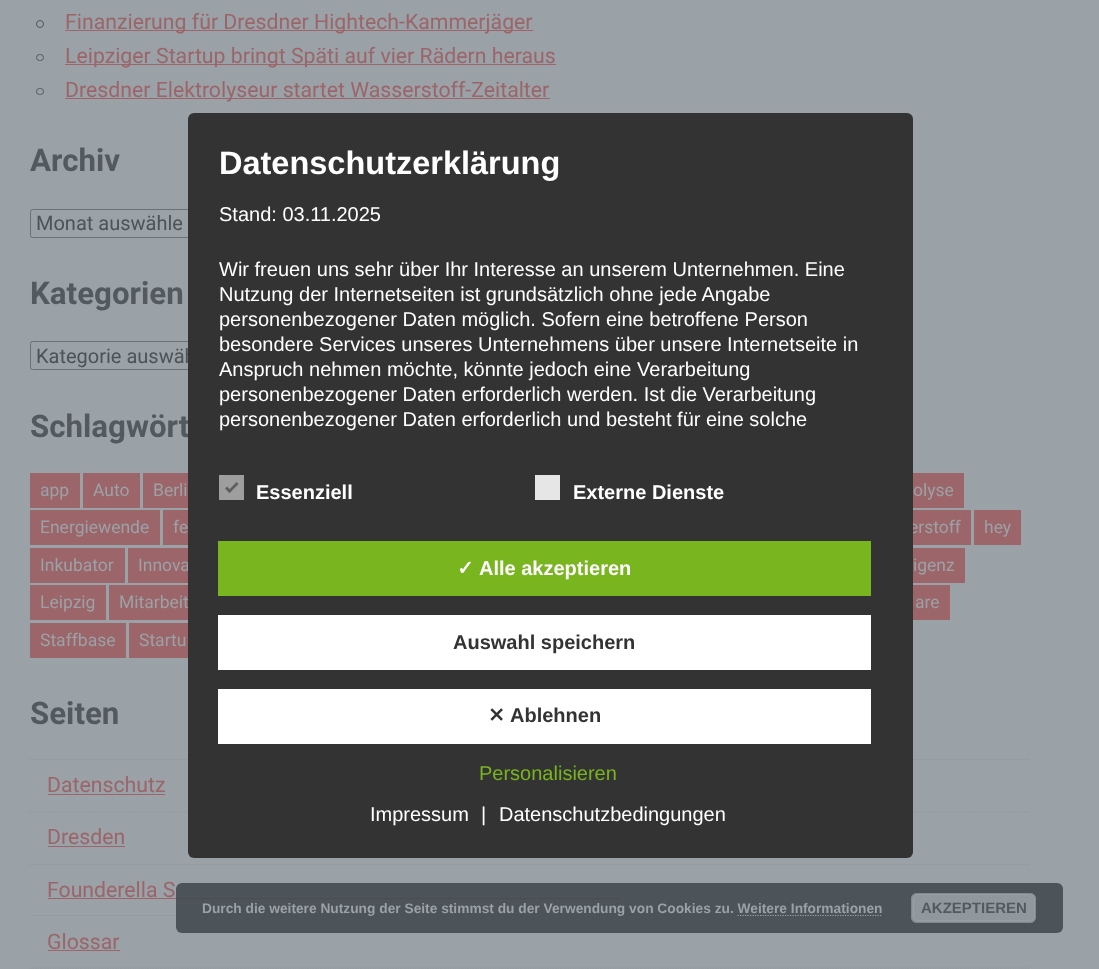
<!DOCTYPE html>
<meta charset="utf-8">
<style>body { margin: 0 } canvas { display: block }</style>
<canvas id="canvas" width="1099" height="969"></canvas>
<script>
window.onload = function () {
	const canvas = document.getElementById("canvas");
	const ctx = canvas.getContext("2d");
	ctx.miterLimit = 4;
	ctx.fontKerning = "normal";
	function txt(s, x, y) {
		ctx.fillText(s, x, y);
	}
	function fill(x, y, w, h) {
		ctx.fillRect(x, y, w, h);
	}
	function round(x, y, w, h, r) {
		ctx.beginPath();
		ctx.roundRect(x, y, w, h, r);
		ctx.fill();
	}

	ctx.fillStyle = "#9BA2A7";
	fill(0, 0, 1099, 969);
	ctx.beginPath();
	ctx.arc(40, 24, 3.5, 0, Math.PI * 2);
	ctx.strokeStyle = "#535A5F";
	ctx.stroke();
	ctx.fillStyle = "#9B6569";
	fill(65, 30, 468, 1);
	ctx.beginPath();
	ctx.roundRect(36.5, 54.5, 7, 6, 3);
	ctx.stroke();
	fill(65, 64, 491, 1);
	ctx.beginPath();
	ctx.roundRect(36.5, 88.5, 7, 6, 3);
	ctx.stroke();
	fill(65, 98, 485, 1);
	ctx.beginPath();
	ctx.roundRect(30.5, 209.5, 185, 28, 2);
	ctx.strokeStyle = "#697175";
	ctx.stroke();
	ctx.beginPath();
	ctx.roundRect(30.5, 341.5, 262, 28, 2);
	ctx.stroke();
	fill(30, 473, 50, 35);
	fill(83, 473, 57, 35);
	fill(143, 473, 45, 35);
	fill(913, 473, 51, 35);
	fill(30, 510, 130, 35);
	fill(163, 510, 25, 35);
	fill(913, 510, 58, 35);
	fill(974, 510, 47, 35);
	fill(30, 548, 95, 35);
	fill(128, 548, 60, 35);
	fill(913, 548, 52, 35);
	fill(30, 585, 76, 35);
	fill(109, 585, 79, 35);
	fill(913, 585, 37, 35);
	fill(30, 623, 96, 35);
	fill(129, 623, 59, 35);
	ctx.beginPath();
	ctx.moveTo(30, 759.5);
	ctx.lineTo(1030, 759.5);
	ctx.strokeStyle = "#8E969A";
	ctx.lineWidth = 1.2;
	ctx.setLineDash([1.25, 1.25]);
	ctx.stroke();
	ctx.beginPath();
	ctx.moveTo(30, 812);
	ctx.lineTo(1030, 812);
	ctx.stroke();
	fill(48, 794, 117, 1);
	ctx.beginPath();
	ctx.moveTo(30, 864.5);
	ctx.lineTo(1030, 864.5);
	ctx.stroke();
	fill(48, 846, 77, 1);
	ctx.beginPath();
	ctx.moveTo(30, 915.5);
	ctx.lineTo(1030, 915.5);
	ctx.stroke();
	fill(48, 898, 571, 1);
	ctx.beginPath();
	ctx.moveTo(30, 968);
	ctx.lineTo(1030, 968);
	ctx.stroke();
	fill(48, 950, 72, 1);
	ctx.fillStyle = "rgba(63, 70, 75, 0.85)";
	round(176, 883, 887, 50, 6);
	ctx.fillStyle = "#90989D";
	round(911, 893, 125, 30, 6);
	ctx.beginPath();
	ctx.roundRect(913.5, 894.5, 121, 26, 4.5);
	ctx.strokeStyle = "#979FA3";
	ctx.lineWidth = 1;
	ctx.setLineDash([]);
	ctx.stroke();
	ctx.beginPath();
	ctx.roundRect(911.5, 893.5, 124, 29, 5.5);
	ctx.strokeStyle = "#828A8E";
	ctx.stroke();
	ctx.beginPath();
	ctx.moveTo(737.5, 915.5);
	ctx.lineTo(882.5, 915.5);
	ctx.strokeStyle = "#9BA2A7";
	ctx.lineWidth = 1.2;
	ctx.setLineDash([1.25, 1.25]);
	ctx.stroke();
	ctx.font = "21.25px Roboto";
	ctx.fillStyle = "#9B6569";
	txt("Finanzierung für Dresdner Hightech-Kammerjäger", 65, 29);
	txt("Leipziger Startup bringt Späti auf vier Rädern heraus", 65, 63);
	txt("Dresdner Elektrolyseur startet Wasserstoff-Zeitalter", 65, 97);
	ctx.font = "bold 31.25px Roboto";
	ctx.fillStyle = "#535A5F";
	txt("Archiv", 30, 171);
	ctx.font = "20px Roboto";
	ctx.fillStyle = "#4B5357";
	txt("Monat auswähle", 36, 230);
	ctx.font = "bold 31.25px Roboto";
	ctx.fillStyle = "#535A5F";
	txt("Kategorien", 30, 304);
	ctx.font = "20px Roboto";
	ctx.fillStyle = "#4B5357";
	txt("Kategorie auswäh", 36, 363);
	ctx.font = "bold 31.25px Roboto";
	ctx.fillStyle = "#535A5F";
	txt("Schlagwört", 30, 437);
	ctx.font = "17.5px Roboto";
	ctx.fillStyle = "#9BA2A7";
	txt("app", 40, 496);
	txt("Auto", 93, 496);
	txt("Berli", 153, 496);
	txt("olyse", 913, 496);
	txt("Energiewende", 40, 533);
	txt("fe", 173, 533);
	txt("erstoff", 909, 533);
	txt("hey", 984, 533);
	txt("Inkubator", 40, 571);
	txt("Innova", 138, 571);
	txt("igenz", 913, 571);
	txt("Leipzig", 40, 608);
	txt("Mitarbeit", 119, 608);
	txt("are", 915, 608);
	txt("Staffbase", 40, 646);
	txt("Startu", 139, 646);
	ctx.font = "bold 31.25px Roboto";
	ctx.fillStyle = "#535A5F";
	txt("Seiten", 30, 724);
	ctx.font = "21.25px Roboto";
	ctx.fillStyle = "#9B6569";
	txt("Datenschutz", 47, 792);
	txt("Dresden", 47, 844);
	txt("Founderella S", 47, 897);
	txt("Glossar", 47, 949);
	ctx.fillStyle = "#333333";
	round(188, 113, 725, 745, 6);
	ctx.font = "bold 32.5px Liberation Sans";
	ctx.fillStyle = "#FFFFFF";
	txt("Datenschutzerklärung", 219, 174);
	ctx.font = "20px Liberation Sans";
	txt("Stand: 03.11.2025", 219, 221);
	txt("Wir freuen uns sehr über Ihr Interesse an unserem Unternehmen. Eine", 219, 276);
	txt("Nutzung der Internetseiten ist grundsätzlich ohne jede Angabe", 219, 301);
	txt("personenbezogener Daten möglich. Sofern eine betroffene Person", 219, 326);
	txt("besondere Services unseres Unternehmens über unsere Internetseite in", 219, 351);
	txt("Anspruch nehmen möchte, könnte jedoch eine Verarbeitung", 219, 376);
	txt("personenbezogener Daten erforderlich werden. Ist die Verarbeitung", 219, 401);
	txt("personenbezogener Daten erforderlich und besteht für eine solche", 219, 426);
	ctx.fillStyle = "#9E9E9E";
	fill(219, 475, 25, 25);
	ctx.fillStyle = "#5E5E5E";
	ctx.beginPath();
	ctx.moveTo(236.5, 482);
	ctx.lineTo(238.5, 484);
	ctx.lineTo(229.5, 493);
	ctx.lineTo(228, 491);
	ctx.closePath();
	ctx.fill();
	ctx.beginPath();
	ctx.moveTo(227, 486.5);
	ctx.lineTo(231.5, 491);
	ctx.lineTo(229.5, 493);
	ctx.lineTo(225, 488.5);
	ctx.closePath();
	ctx.fill();
	ctx.font = "bold 20px Liberation Sans";
	ctx.fillStyle = "#FFFFFF";
	txt("Essenziell", 256, 499);
	ctx.fillStyle = "#E6E6E6";
	fill(535, 475, 25, 25);
	ctx.fillStyle = "#FFFFFF";
	txt("Externe Dienste", 573, 499);
	ctx.fillStyle = "#79B51F";
	fill(218, 541, 653, 55);
	ctx.font = "bold 20px DejaVu Sans";
	ctx.fillStyle = "#FFFFFF";
	txt("✓", 457, 575);
	ctx.font = "bold 20px Liberation Sans";
	txt("Alle akzeptieren", 479, 575);
	fill(218, 615, 653, 55);
	ctx.fillStyle = "#333333";
	txt("Auswahl speichern", 453, 649);
	ctx.fillStyle = "#FFFFFF";
	fill(218, 689, 653, 55);
	ctx.font = "bold 20px DejaVu Sans";
	ctx.fillStyle = "#333333";
	txt("✕", 488, 722);
	ctx.font = "bold 20px Liberation Sans";
	txt("Ablehnen", 510, 722);
	ctx.font = "20px Liberation Sans";
	ctx.fillStyle = "#79B51F";
	txt("Personalisieren", 479, 780);
	ctx.fillStyle = "#FFFFFF";
	txt("Impressum", 370, 821);
	txt("|", 481, 821);
	txt("Datenschutzbedingungen", 499, 821);
	ctx.font = "bold 13.75px Liberation Sans";
	ctx.fillStyle = "#9BA2A7";
	txt("Durch die weitere Nutzung der Seite stimmst du der Verwendung von Cookies zu. Weitere Informationen", 202, 913);
	ctx.font = "bold 15px Liberation Sans";
	ctx.fillStyle = "#535A5F";
	txt("AKZEPTIEREN", 921, 913);
};
</script>
